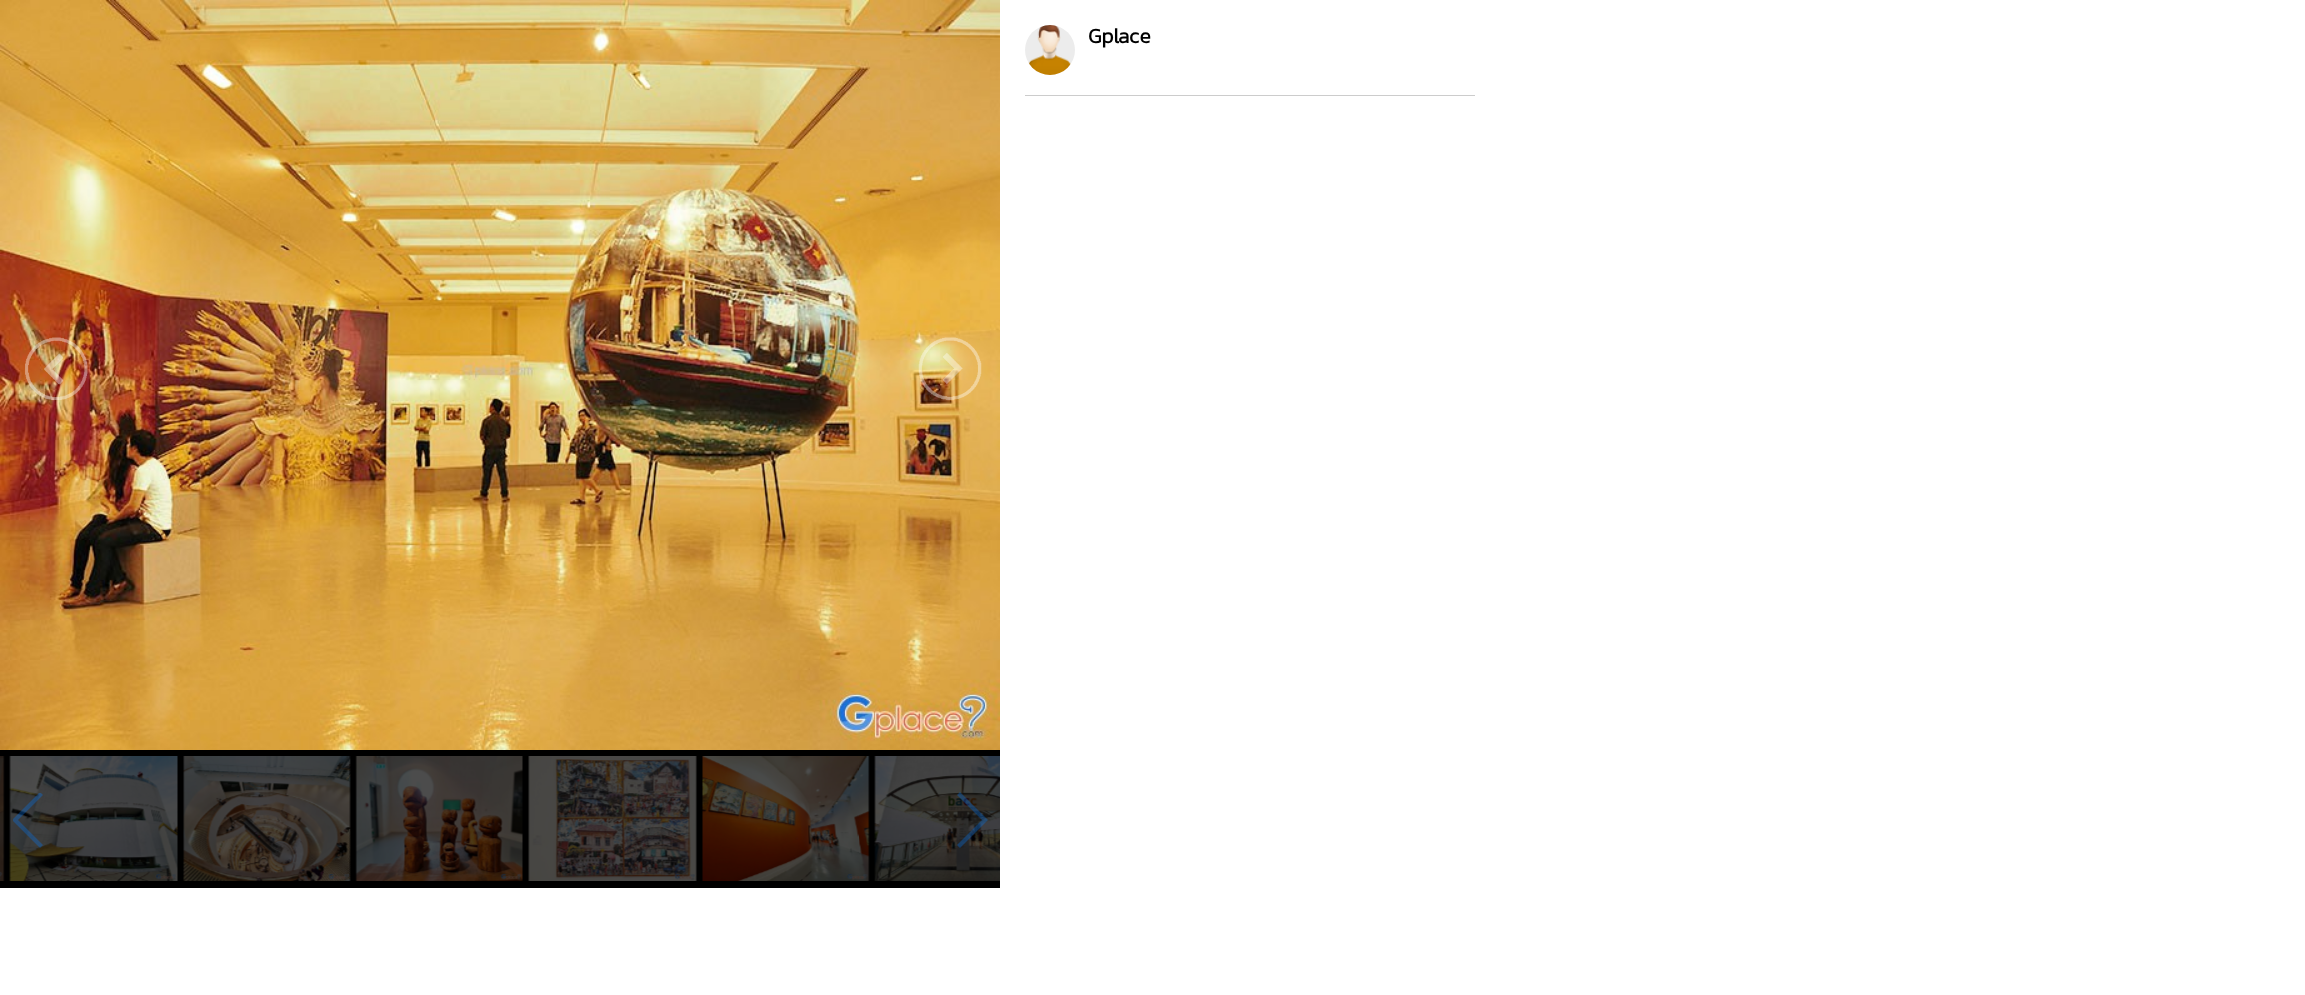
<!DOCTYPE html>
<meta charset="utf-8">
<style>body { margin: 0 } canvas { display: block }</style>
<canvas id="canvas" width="2305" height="995"></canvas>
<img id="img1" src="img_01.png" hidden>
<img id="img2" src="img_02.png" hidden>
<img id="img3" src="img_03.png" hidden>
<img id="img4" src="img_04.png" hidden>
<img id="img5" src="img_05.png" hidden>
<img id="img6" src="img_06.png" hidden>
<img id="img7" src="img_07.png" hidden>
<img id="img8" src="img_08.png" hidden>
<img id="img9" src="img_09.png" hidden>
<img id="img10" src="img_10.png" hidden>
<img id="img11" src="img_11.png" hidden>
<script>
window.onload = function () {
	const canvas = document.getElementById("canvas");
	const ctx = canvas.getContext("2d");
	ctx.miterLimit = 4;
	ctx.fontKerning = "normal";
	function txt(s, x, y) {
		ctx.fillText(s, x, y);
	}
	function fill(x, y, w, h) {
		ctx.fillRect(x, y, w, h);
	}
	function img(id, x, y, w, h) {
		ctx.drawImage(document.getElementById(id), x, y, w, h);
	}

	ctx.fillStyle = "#FFFFFF";
	fill(0, 0, 2305, 995);
	ctx.fillStyle = "#000000";
	fill(0, 750, 1000, 138);
	img("img1", 0, 0, 1000, 750);
	img("img2", 25, 337, 63, 63);
	img("img3", 918, 337, 64, 63);
	img("img4", 0, 756, 5, 125);
	img("img5", 9, 756, 169, 125);
	img("img6", 183, 756, 168, 125);
	img("img7", 355, 756, 168, 125);
	img("img8", 528, 756, 169, 125);
	img("img9", 702, 756, 168, 125);
	img("img10", 874, 756, 126, 125);
	ctx.save();
	ctx.beginPath();
	ctx.rect(13, 793, 33, 55);
	ctx.clip();
	ctx.fillStyle = "rgba(0, 122, 255, 0.3)";
	ctx.beginPath();
	ctx.moveTo(12, 820);
	ctx.lineTo(40, 792);
	ctx.lineTo(43, 795);
	ctx.lineTo(18, 820);
	ctx.lineTo(43, 845);
	ctx.lineTo(40, 848);
	ctx.closePath();
	ctx.fill();
	ctx.restore();
	ctx.fillStyle = "rgba(0, 122, 255, 0.3)";
	ctx.beginPath();
	ctx.moveTo(988, 820);
	ctx.lineTo(960, 848);
	ctx.lineTo(957, 845);
	ctx.lineTo(982, 820);
	ctx.lineTo(957, 795);
	ctx.lineTo(960, 792);
	ctx.closePath();
	ctx.fill();
	img("img11", 1025, 25, 50, 50);
	ctx.fillStyle = "#CCCCCC";
	fill(1025, 95, 450, 1);
	ctx.font = "bold 21px Kanit";
	ctx.fillStyle = "#000000";
	txt("Gplace", 1088, 43);
};
</script>
